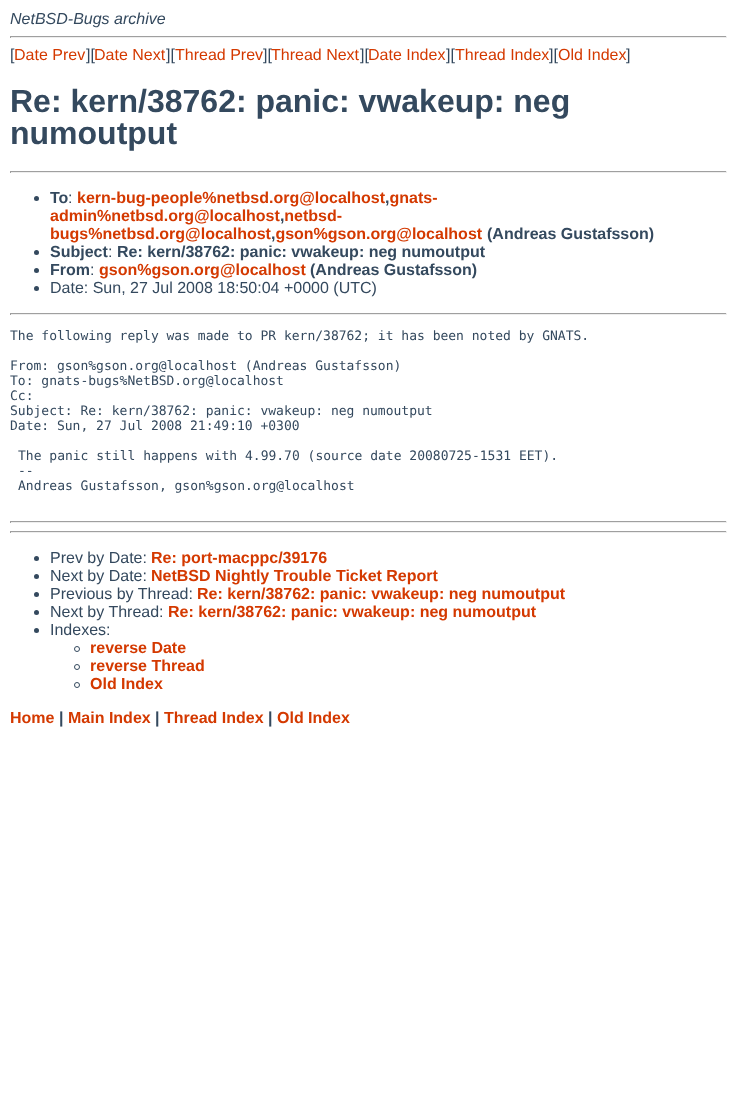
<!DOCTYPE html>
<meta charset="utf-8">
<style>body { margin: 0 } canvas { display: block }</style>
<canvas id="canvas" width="737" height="1103"></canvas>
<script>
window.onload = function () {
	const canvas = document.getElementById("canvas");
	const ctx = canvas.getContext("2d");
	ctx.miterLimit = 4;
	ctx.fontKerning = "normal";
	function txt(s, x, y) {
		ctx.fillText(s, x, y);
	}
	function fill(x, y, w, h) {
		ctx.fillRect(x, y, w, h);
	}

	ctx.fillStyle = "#FFFFFF";
	fill(0, 0, 737, 1103);
	ctx.fillStyle = "#9F9F9F";
	fill(10, 36, 717, 1);
	ctx.fillStyle = "#EEEEEE";
	fill(726, 36, 1, 2);
	fill(10, 37, 717, 1);
	ctx.fillStyle = "#9F9F9F";
	fill(10, 36, 1, 2);
	fill(10, 171, 717, 1);
	ctx.fillStyle = "#EEEEEE";
	fill(726, 171, 1, 2);
	fill(10, 172, 717, 1);
	ctx.fillStyle = "#9F9F9F";
	fill(10, 171, 1, 2);
	ctx.fillStyle = "#34495E";
	ctx.beginPath();
	ctx.arc(36.5, 198.5, 2.5, 0, Math.PI * 2);
	ctx.fill();
	ctx.beginPath();
	ctx.arc(36.5, 252.5, 2.5, 0, Math.PI * 2);
	ctx.fill();
	ctx.beginPath();
	ctx.arc(36.5, 270.5, 2.5, 0, Math.PI * 2);
	ctx.fill();
	ctx.beginPath();
	ctx.arc(36.5, 288.5, 2.5, 0, Math.PI * 2);
	ctx.fill();
	ctx.fillStyle = "#9F9F9F";
	fill(10, 313, 717, 1);
	ctx.fillStyle = "#EEEEEE";
	fill(726, 313, 1, 2);
	fill(10, 314, 717, 1);
	ctx.fillStyle = "#9F9F9F";
	fill(10, 313, 1, 2);
	fill(10, 521, 717, 1);
	ctx.fillStyle = "#EEEEEE";
	fill(726, 521, 1, 2);
	fill(10, 522, 717, 1);
	ctx.fillStyle = "#9F9F9F";
	fill(10, 521, 1, 2);
	fill(10, 531, 717, 1);
	ctx.fillStyle = "#EEEEEE";
	fill(726, 531, 1, 2);
	fill(10, 532, 717, 1);
	ctx.fillStyle = "#9F9F9F";
	fill(10, 531, 1, 2);
	ctx.fillStyle = "#34495E";
	ctx.beginPath();
	ctx.arc(36.5, 558.5, 2.5, 0, Math.PI * 2);
	ctx.fill();
	ctx.beginPath();
	ctx.arc(36.5, 576.5, 2.5, 0, Math.PI * 2);
	ctx.fill();
	ctx.beginPath();
	ctx.arc(36.5, 594.5, 2.5, 0, Math.PI * 2);
	ctx.fill();
	ctx.beginPath();
	ctx.arc(36.5, 612.5, 2.5, 0, Math.PI * 2);
	ctx.fill();
	ctx.beginPath();
	ctx.arc(36.5, 630.5, 2.5, 0, Math.PI * 2);
	ctx.fill();
	ctx.beginPath();
	ctx.arc(77, 649, 2.5, 0, Math.PI * 2);
	ctx.strokeStyle = "#34495E";
	ctx.stroke();
	ctx.beginPath();
	ctx.arc(77, 667, 2.5, 0, Math.PI * 2);
	ctx.stroke();
	ctx.beginPath();
	ctx.arc(77, 685, 2.5, 0, Math.PI * 2);
	ctx.stroke();
	ctx.font = "italic 16px Liberation Sans";
	txt("NetBSD-Bugs archive", 10, 24);
	ctx.font = "16px Liberation Sans";
	txt("[", 10, 60);
	ctx.fillStyle = "#D43900";
	txt("Date Prev", 14, 60);
	ctx.fillStyle = "#34495E";
	txt("][", 86, 60);
	ctx.fillStyle = "#D43900";
	txt("Date Next", 94, 60);
	ctx.fillStyle = "#34495E";
	txt("][", 166, 60);
	ctx.fillStyle = "#D43900";
	txt("Thread Prev", 175, 60);
	ctx.fillStyle = "#34495E";
	txt("][", 263, 60);
	ctx.fillStyle = "#D43900";
	txt("Thread Next", 271, 60);
	ctx.fillStyle = "#34495E";
	txt("][", 360, 60);
	ctx.fillStyle = "#D43900";
	txt("Date Index", 368, 60);
	ctx.fillStyle = "#34495E";
	txt("][", 446, 60);
	ctx.fillStyle = "#D43900";
	txt("Thread Index", 455, 60);
	ctx.fillStyle = "#34495E";
	txt("][", 549, 60);
	ctx.fillStyle = "#D43900";
	txt("Old Index", 558, 60);
	ctx.fillStyle = "#34495E";
	txt("]", 626, 60);
	ctx.font = "bold 32px Liberation Sans";
	txt("Re: kern/38762: panic: vwakeup: neg", 10, 112);
	txt("numoutput", 10, 144);
	ctx.font = "bold 16px Liberation Sans";
	txt("To", 50, 203);
	ctx.font = "16px Liberation Sans";
	txt(":", 68, 203);
	ctx.font = "bold 16px Liberation Sans";
	ctx.fillStyle = "#D43900";
	txt("kern-bug-people%netbsd.org@localhost gnats-", 77, 203);
	ctx.fillStyle = "#34495E";
	txt(",", 385, 203);
	ctx.fillStyle = "#D43900";
	txt("admin%netbsd.org@localhost netbsd-", 50, 221);
	ctx.fillStyle = "#34495E";
	txt(",", 280, 221);
	ctx.fillStyle = "#D43900";
	txt("bugs%netbsd.org@localhost gson%gson.org@localhost", 50, 239);
	ctx.fillStyle = "#34495E";
	txt("(Andreas Gustafsson)", 487, 239);
	txt(",", 271, 239);
	txt("Subject", 50, 257);
	ctx.font = "16px Liberation Sans";
	txt(":", 108, 257);
	ctx.font = "bold 16px Liberation Sans";
	txt("Re: kern/38762: panic: vwakeup: neg numoutput", 117, 257);
	txt("From", 50, 275);
	ctx.font = "16px Liberation Sans";
	txt(":", 90, 275);
	ctx.font = "bold 16px Liberation Sans";
	ctx.fillStyle = "#D43900";
	txt("gson%gson.org@localhost", 99, 275);
	ctx.fillStyle = "#34495E";
	txt("(Andreas Gustafsson)", 310, 275);
	ctx.font = "16px Liberation Sans";
	txt("Date: Sun, 27 Jul 2008 18:50:04 +0000 (UTC)", 50, 293);
	ctx.font = "13px DejaVu Sans Mono";
	txt("The following reply was made to PR kern/38762; it has been noted by GNATS.", 10, 340);
	txt("From: gson%gson.org@localhost (Andreas Gustafsson)", 10, 370);
	txt("To: gnats-bugs%NetBSD.org@localhost", 10, 385);
	txt("Cc:", 10, 400);
	txt("Subject: Re: kern/38762: panic: vwakeup: neg numoutput", 10, 415);
	txt("Date: Sun, 27 Jul 2008 21:49:10 +0300", 10, 430);
	txt("The panic still happens with 4.99.70 (source date 20080725-1531 EET).", 18, 460);
	txt("--", 18, 475);
	txt("Andreas Gustafsson, gson%gson.org@localhost", 18, 490);
	ctx.font = "16px Liberation Sans";
	txt("Prev by Date:", 50, 563);
	ctx.font = "bold 16px Liberation Sans";
	ctx.fillStyle = "#D43900";
	txt("Re: port-macppc/39176", 151, 563);
	ctx.font = "16px Liberation Sans";
	ctx.fillStyle = "#34495E";
	txt("Next by Date:", 50, 581);
	ctx.font = "bold 16px Liberation Sans";
	ctx.fillStyle = "#D43900";
	txt("NetBSD Nightly Trouble Ticket Report", 151, 581);
	ctx.font = "16px Liberation Sans";
	ctx.fillStyle = "#34495E";
	txt("Previous by Thread:", 50, 599);
	ctx.font = "bold 16px Liberation Sans";
	ctx.fillStyle = "#D43900";
	txt("Re: kern/38762: panic: vwakeup: neg numoutput", 197, 599);
	ctx.font = "16px Liberation Sans";
	ctx.fillStyle = "#34495E";
	txt("Next by Thread:", 50, 617);
	ctx.font = "bold 16px Liberation Sans";
	ctx.fillStyle = "#D43900";
	txt("Re: kern/38762: panic: vwakeup: neg numoutput", 168, 617);
	ctx.font = "16px Liberation Sans";
	ctx.fillStyle = "#34495E";
	txt("Indexes:", 50, 635);
	ctx.font = "bold 16px Liberation Sans";
	ctx.fillStyle = "#D43900";
	txt("reverse Date", 90, 653);
	txt("reverse Thread", 90, 671);
	txt("Old Index", 90, 689);
	txt("Home", 10, 723);
	ctx.fillStyle = "#34495E";
	txt("|", 59, 723);
	ctx.fillStyle = "#D43900";
	txt("Main Index", 68, 723);
	ctx.fillStyle = "#34495E";
	txt("|", 155, 723);
	ctx.fillStyle = "#D43900";
	txt("Thread Index", 164, 723);
	ctx.fillStyle = "#34495E";
	txt("|", 268, 723);
	ctx.fillStyle = "#D43900";
	txt("Old Index", 277, 723);
};
</script>
